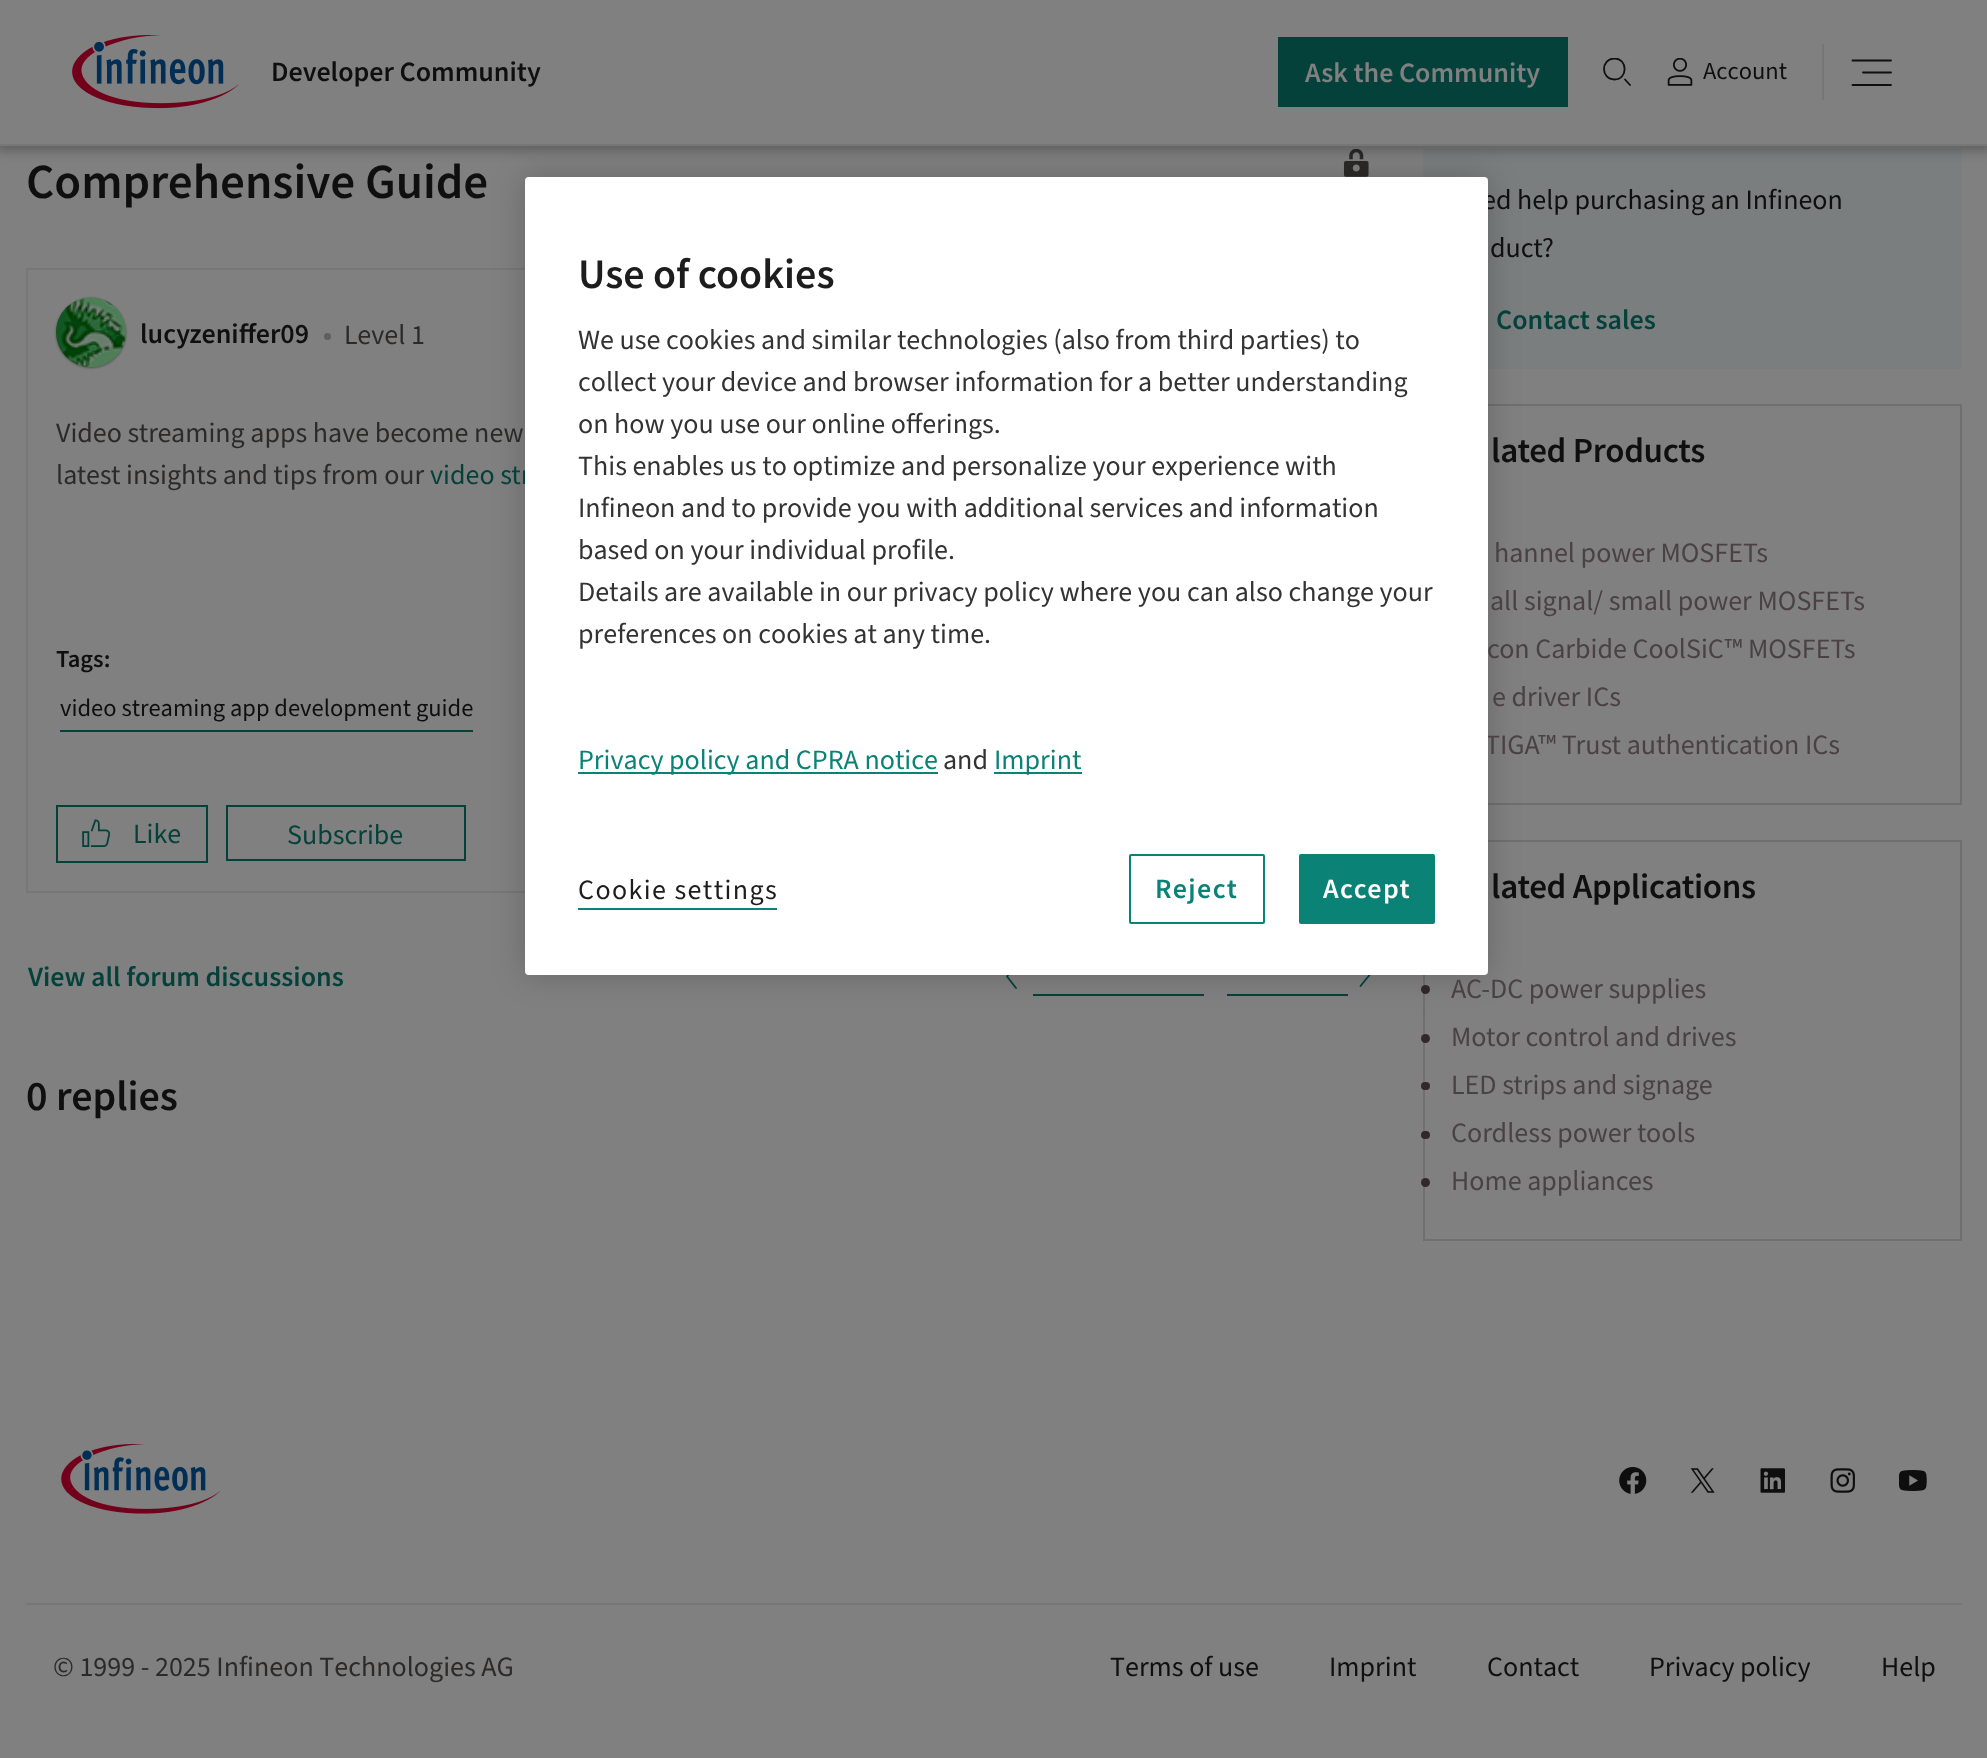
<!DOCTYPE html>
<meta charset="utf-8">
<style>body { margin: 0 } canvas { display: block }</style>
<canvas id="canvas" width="1987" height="1758"></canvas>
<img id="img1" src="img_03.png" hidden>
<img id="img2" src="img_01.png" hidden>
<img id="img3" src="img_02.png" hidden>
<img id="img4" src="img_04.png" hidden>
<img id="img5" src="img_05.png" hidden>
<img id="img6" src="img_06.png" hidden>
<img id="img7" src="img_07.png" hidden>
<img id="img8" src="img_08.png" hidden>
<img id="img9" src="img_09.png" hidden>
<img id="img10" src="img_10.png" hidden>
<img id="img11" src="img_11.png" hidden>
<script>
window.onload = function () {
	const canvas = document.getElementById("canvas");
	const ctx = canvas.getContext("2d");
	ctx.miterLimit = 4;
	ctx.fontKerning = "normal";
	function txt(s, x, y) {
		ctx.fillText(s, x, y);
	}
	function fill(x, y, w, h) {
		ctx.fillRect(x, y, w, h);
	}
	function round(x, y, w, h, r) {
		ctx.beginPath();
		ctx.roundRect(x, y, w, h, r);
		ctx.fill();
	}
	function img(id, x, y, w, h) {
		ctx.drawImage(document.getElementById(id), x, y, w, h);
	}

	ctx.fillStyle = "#808080";
	fill(0, 0, 1987, 1758);
	img("img1", 1343, 149, 26, 28);
	ctx.fillStyle = "#7B7E7E";
	fill(1423, 149, 539, 220);
	ctx.fillStyle = "rgba(0, 0, 0, 0.25)";
	ctx.filter = "blur(6px)";
	ctx.beginPath();
	ctx.rect(-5, -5, 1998, 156);
	ctx.fill();
	ctx.filter = "none";
	ctx.fillStyle = "#808080";
	fill(0, 0, 1987, 144);
	ctx.fillStyle = "#777777";
	fill(0, 144, 1987, 2);
	img("img2", 72, 35, 167, 74);
	ctx.fillStyle = "#05413B";
	fill(1278, 37, 290, 70);
	ctx.beginPath();
	ctx.moveTo(1630, 85);
	ctx.lineTo(1625, 79.5);
	ctx.strokeStyle = "#0F0F0F";
	ctx.lineWidth = 1.8;
	ctx.lineCap = "round";
	ctx.lineJoin = "round";
	ctx.stroke();
	ctx.save();
	ctx.beginPath();
	ctx.rect(1603, 58, 28, 28);
	ctx.clip();
	ctx.beginPath();
	ctx.moveTo(1614.5, 79.5);
	ctx.bezierCurveTo(1628, 79.5, 1628, 58.5, 1614.5, 58.5);
	ctx.bezierCurveTo(1600.5, 58.5, 1600.5, 79.5, 1614.5, 79.5);
	ctx.closePath();
	ctx.stroke();
	ctx.restore();
	img("img3", 1667, 58, 26, 28);
	ctx.fillStyle = "#777777";
	fill(1822, 44, 2, 56);
	ctx.beginPath();
	ctx.moveTo(1852.5, 85);
	ctx.lineTo(1891, 85);
	ctx.moveTo(1852.5, 60.5);
	ctx.lineTo(1891, 60.5);
	ctx.moveTo(1863, 72.5);
	ctx.lineTo(1891, 72.5);
	ctx.stroke();
	fill(26, 268, 499, 2);
	fill(26, 268, 2, 509);
	ctx.fillStyle = "#4D4D4D";
	ctx.filter = "blur(1px)";
	ctx.beginPath();
	ctx.roundRect(56, 298, 70, 70, 35);
	ctx.fill();
	ctx.filter = "none";
	img("img4", 56, 297, 70, 70);
	ctx.fillStyle = "#605E5E";
	ctx.beginPath();
	ctx.arc(327.5, 336.5, 3.5, 0, Math.PI * 2);
	ctx.fill();
	ctx.fillStyle = "#05413B";
	fill(60, 730, 413, 2);
	ctx.fillStyle = "#777777";
	fill(26, 891, 499, 2);
	fill(26, 777, 2, 116);
	ctx.strokeStyle = "#05413B";
	ctx.lineWidth = 2;
	ctx.lineJoin = "miter";
	ctx.strokeRect(57, 806, 150, 56);
	img("img5", 82, 819, 28, 28);
	ctx.strokeRect(227, 806, 238, 54);
	ctx.beginPath();
	ctx.moveTo(1016, 965);
	ctx.lineTo(1007, 976.5);
	ctx.lineTo(1016, 988);
	ctx.lineWidth = 1.8;
	ctx.lineJoin = "round";
	ctx.stroke();
	ctx.fillStyle = "#05413B";
	fill(1033, 994, 171, 2);
	ctx.beginPath();
	ctx.moveTo(1360.5, 963.5);
	ctx.lineTo(1369.5, 975);
	ctx.lineTo(1360.5, 986);
	ctx.stroke();
	fill(1227, 994, 121, 2);
	ctx.strokeStyle = "#6F6F6F";
	ctx.lineWidth = 2;
	ctx.lineJoin = "miter";
	ctx.strokeRect(1424, 405, 537, 399);
	ctx.strokeRect(1424, 841, 537, 399);
	ctx.fillStyle = "#32282A";
	ctx.beginPath();
	ctx.arc(1425.5, 989.5, 4.5, 0, Math.PI * 2);
	ctx.fill();
	ctx.beginPath();
	ctx.arc(1425.5, 1038.5, 4.5, 0, Math.PI * 2);
	ctx.fill();
	round(1421, 1082, 9, 8, 4);
	round(1421, 1131, 9, 8, 4);
	ctx.beginPath();
	ctx.arc(1425.5, 1182.5, 4.5, 0, Math.PI * 2);
	ctx.fill();
	ctx.fillStyle = "#777777";
	fill(26, 1603, 1936, 2);
	img("img6", 61, 1444, 160, 70);
	img("img7", 1619, 1467, 28, 27);
	img("img8", 1690, 1468, 25, 25);
	img("img9", 1760, 1468, 25, 25);
	img("img10", 1830, 1468, 25, 25);
	img("img11", 1899, 1470, 28, 21);
	ctx.fillStyle = "rgba(0, 0, 0, 0.2)";
	ctx.filter = "blur(16px)";
	ctx.beginPath();
	ctx.roundRect(525, 177, 963, 798, 4);
	ctx.fill();
	ctx.filter = "none";
	ctx.font = "600 28px Source Sans Pro";
	ctx.fillStyle = "#0F0F0F";
	txt("Developer Community", 271, 81);
	ctx.fillStyle = "#808080";
	txt("Ask the Community", 1305, 82);
	ctx.font = "24.5px 'Source Sans 3'";
	ctx.fillStyle = "#0F0F0F";
	txt("Account", 1703, 79);
	ctx.font = "600 49px Source Sans Pro";
	txt("Comprehensive Guide", 26, 198);
	ctx.font = "600 28px Source Sans Pro";
	txt("lucyzeniffer09", 140, 343);
	ctx.font = "28px Source Sans Pro";
	ctx.fillStyle = "#2C2A29";
	txt("Level 1", 344, 344);
	txt("Video streaming apps have become new", 56, 442);
	txt("latest insights and tips from our", 56, 484);
	ctx.fillStyle = "#05413B";
	txt("video str", 430, 484);
	ctx.font = "600 24.5px Source Sans Pro";
	ctx.fillStyle = "#0F0F0F";
	txt("Tags:", 56, 667);
	ctx.font = "24.5px 'Source Sans 3'";
	txt("video streaming app development guide", 60, 716);
	ctx.font = "28px 'Source Sans 3'";
	ctx.fillStyle = "#05413B";
	txt("Like", 133, 843);
	ctx.font = "28px Source Sans Pro";
	txt("Subscribe", 287, 844);
	ctx.font = "600 28px Source Sans Pro";
	txt("View all forum discussions", 28, 986);
	ctx.font = "600 42px Source Sans Pro";
	ctx.fillStyle = "#0F0F0F";
	txt("0 replies", 26, 1110);
	ctx.font = "28px Source Sans Pro";
	txt("ed help purchasing an Infineon", 1482, 209);
	txt("duct?", 1490, 257);
	ctx.font = "600 28px Source Sans Pro";
	ctx.fillStyle = "#05413B";
	txt("Contact sales", 1496, 329);
	ctx.letterSpacing = "-0.3px";
	ctx.font = "600 35px Source Sans Pro";
	ctx.fillStyle = "#0F0F0F";
	txt("lated Products", 1491, 462);
	ctx.letterSpacing = "0px";
	ctx.font = "28px Source Sans Pro";
	ctx.fillStyle = "#494143";
	txt("hannel power MOSFETs", 1494, 562);
	txt("all signal/ small power MOSFETs", 1490, 610);
	txt("con Carbide CoolSiC™ MOSFETs", 1487, 658);
	txt("e driver ICs", 1492, 706);
	txt("TIGA™ Trust authentication ICs", 1485, 754);
	ctx.letterSpacing = "-0.3px";
	ctx.font = "600 35px Source Sans Pro";
	ctx.fillStyle = "#0F0F0F";
	txt("lated Applications", 1491, 898);
	ctx.letterSpacing = "0px";
	ctx.font = "28px Source Sans Pro";
	ctx.fillStyle = "#494143";
	txt("AC-DC power supplies", 1451, 998);
	txt("Motor control and drives", 1451, 1046);
	txt("LED strips and signage", 1451, 1094);
	txt("Cordless power tools", 1451, 1142);
	txt("Home appliances", 1451, 1190);
	ctx.font = "28px 'Source Sans 3'";
	ctx.fillStyle = "#2C2A29";
	txt("© 1999 - 2025 Infineon Technologies AG", 53, 1676);
	ctx.fillStyle = "#0F0F0F";
	txt("Terms of use", 1110, 1676);
	txt("Imprint", 1329, 1676);
	txt("Contact", 1487, 1676);
	txt("Privacy policy", 1649, 1676);
	txt("Help", 1881, 1676);
	ctx.fillStyle = "#FFFFFF";
	round(525, 177, 963, 798, 4);
	ctx.font = "600 42px Source Sans Pro";
	ctx.fillStyle = "#1D1D1D";
	txt("Use of cookies", 578, 288);
	ctx.font = "28px 'Source Sans 3'";
	ctx.fillStyle = "#333333";
	txt("We use cookies and similar technologies (also from third parties) to", 578, 349);
	txt("collect your device and browser information for a better understanding", 578, 391);
	txt("on how you use our online offerings.", 578, 433);
	txt("This enables us to optimize and personalize your experience with", 578, 475);
	txt("Infineon and to provide you with additional services and information", 578, 517);
	txt("based on your individual profile.", 578, 559);
	txt("Details are available in our privacy policy where you can also change your", 578, 601);
	txt("preferences on cookies at any time.", 578, 643);
	ctx.fillStyle = "#0A8276";
	fill(578, 772, 360, 2);
	txt("Privacy policy and CPRA notice", 578, 769);
	ctx.fillStyle = "#333333";
	txt("and", 943, 769);
	ctx.fillStyle = "#0A8276";
	fill(994, 772, 88, 2);
	txt("Imprint", 994, 769);
	ctx.letterSpacing = "1.4px";
	ctx.fillStyle = "#1D1D1D";
	txt("Cookie settings", 578, 899);
	ctx.fillStyle = "#0A8276";
	fill(578, 908, 199, 2);
	ctx.beginPath();
	ctx.roundRect(1130, 855, 134, 68, 1);
	ctx.strokeStyle = "#0A8276";
	ctx.stroke();
	ctx.font = "600 28px Source Sans Pro";
	txt("Reject", 1155, 898);
	ctx.beginPath();
	ctx.roundRect(1300, 855, 134, 68, 1);
	ctx.fill();
	ctx.stroke();
	ctx.fillStyle = "#FFFFFF";
	txt("Accept", 1323, 898);
};
</script>
